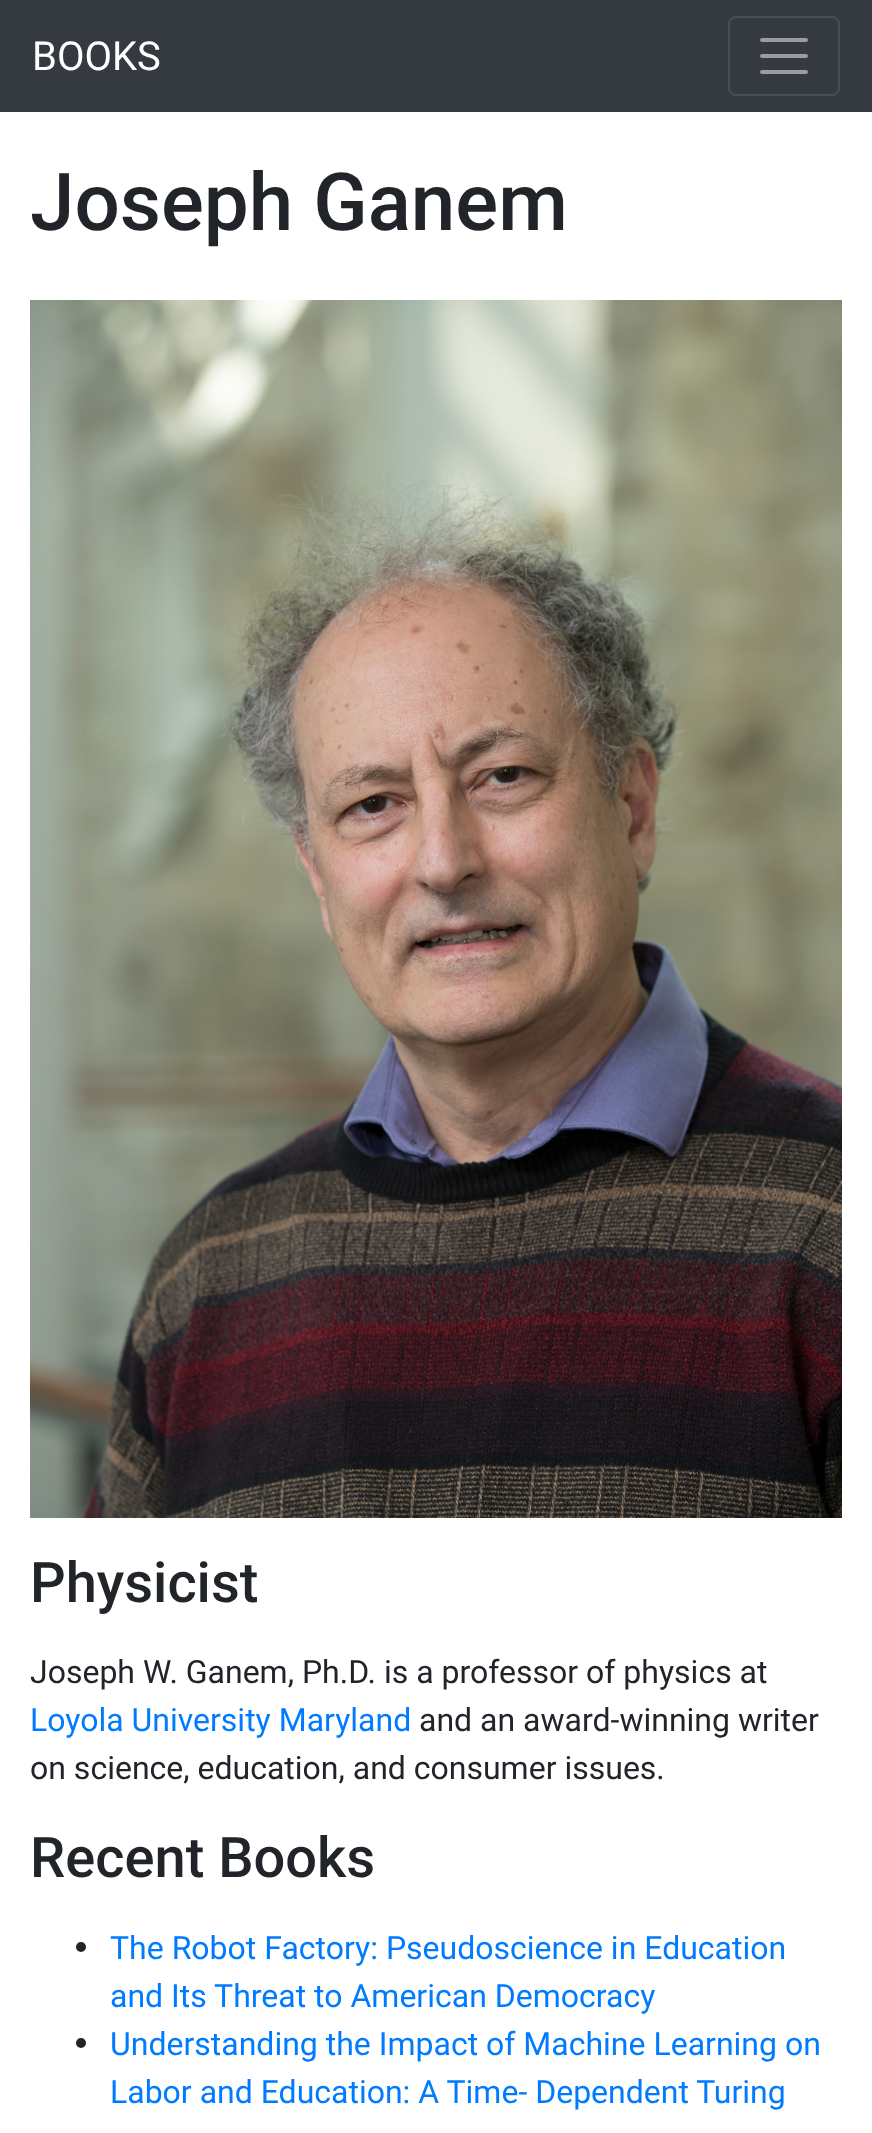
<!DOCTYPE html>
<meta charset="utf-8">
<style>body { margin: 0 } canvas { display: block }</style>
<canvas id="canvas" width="872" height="2133"></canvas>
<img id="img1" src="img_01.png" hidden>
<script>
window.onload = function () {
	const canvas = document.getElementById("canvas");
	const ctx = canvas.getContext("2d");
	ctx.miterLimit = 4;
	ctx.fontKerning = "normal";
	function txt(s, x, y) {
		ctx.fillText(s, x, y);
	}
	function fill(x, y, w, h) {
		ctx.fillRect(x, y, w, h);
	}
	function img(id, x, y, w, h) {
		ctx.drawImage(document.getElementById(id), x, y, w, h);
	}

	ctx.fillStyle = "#FFFFFF";
	fill(0, 0, 872, 2133);
	ctx.fillStyle = "#343A40";
	fill(0, 0, 872, 112);
	ctx.beginPath();
	ctx.roundRect(729, 17, 110, 78, 7);
	ctx.strokeStyle = "#484E53";
	ctx.lineWidth = 2;
	ctx.stroke();
	ctx.beginPath();
	ctx.moveTo(762, 40);
	ctx.lineTo(806, 40);
	ctx.moveTo(762, 56);
	ctx.lineTo(806, 56);
	ctx.moveTo(762, 72);
	ctx.lineTo(806, 72);
	ctx.strokeStyle = "#9A9DA0";
	ctx.lineWidth = 4;
	ctx.lineCap = "round";
	ctx.stroke();
	img("img1", 30, 300, 812, 1218);
	ctx.fillStyle = "#212529";
	ctx.beginPath();
	ctx.arc(81, 1947, 5, 0, Math.PI * 2);
	ctx.fill();
	ctx.beginPath();
	ctx.arc(81, 2043, 5, 0, Math.PI * 2);
	ctx.fill();
	ctx.font = "40px Roboto";
	ctx.fillStyle = "#FFFFFF";
	txt("BOOKS", 32, 70);
	ctx.font = "500 80px Roboto";
	ctx.fillStyle = "#212529";
	txt("Joseph Ganem", 30, 230);
	ctx.font = "500 56px Roboto";
	txt("Physicist", 30, 1602);
	ctx.font = "32px Roboto";
	txt("Joseph W. Ganem, Ph.D. is a professor of physics at", 30, 1683);
	ctx.fillStyle = "#007BFF";
	txt("Loyola University Maryland", 30, 1731);
	ctx.fillStyle = "#212529";
	txt("and an award-winning writer", 419, 1731);
	txt("on science, education, and consumer issues.", 30, 1779);
	ctx.font = "500 56px Roboto";
	txt("Recent Books", 30, 1877);
	ctx.font = "32px Roboto";
	ctx.fillStyle = "#007BFF";
	txt("The Robot Factory: Pseudoscience in Education", 110, 1959);
	txt("and Its Threat to American Democracy", 110, 2007);
	txt("Understanding the Impact of Machine Learning on", 110, 2055);
	txt("Labor and Education: A Time- Dependent Turing", 110, 2103);
};
</script>
